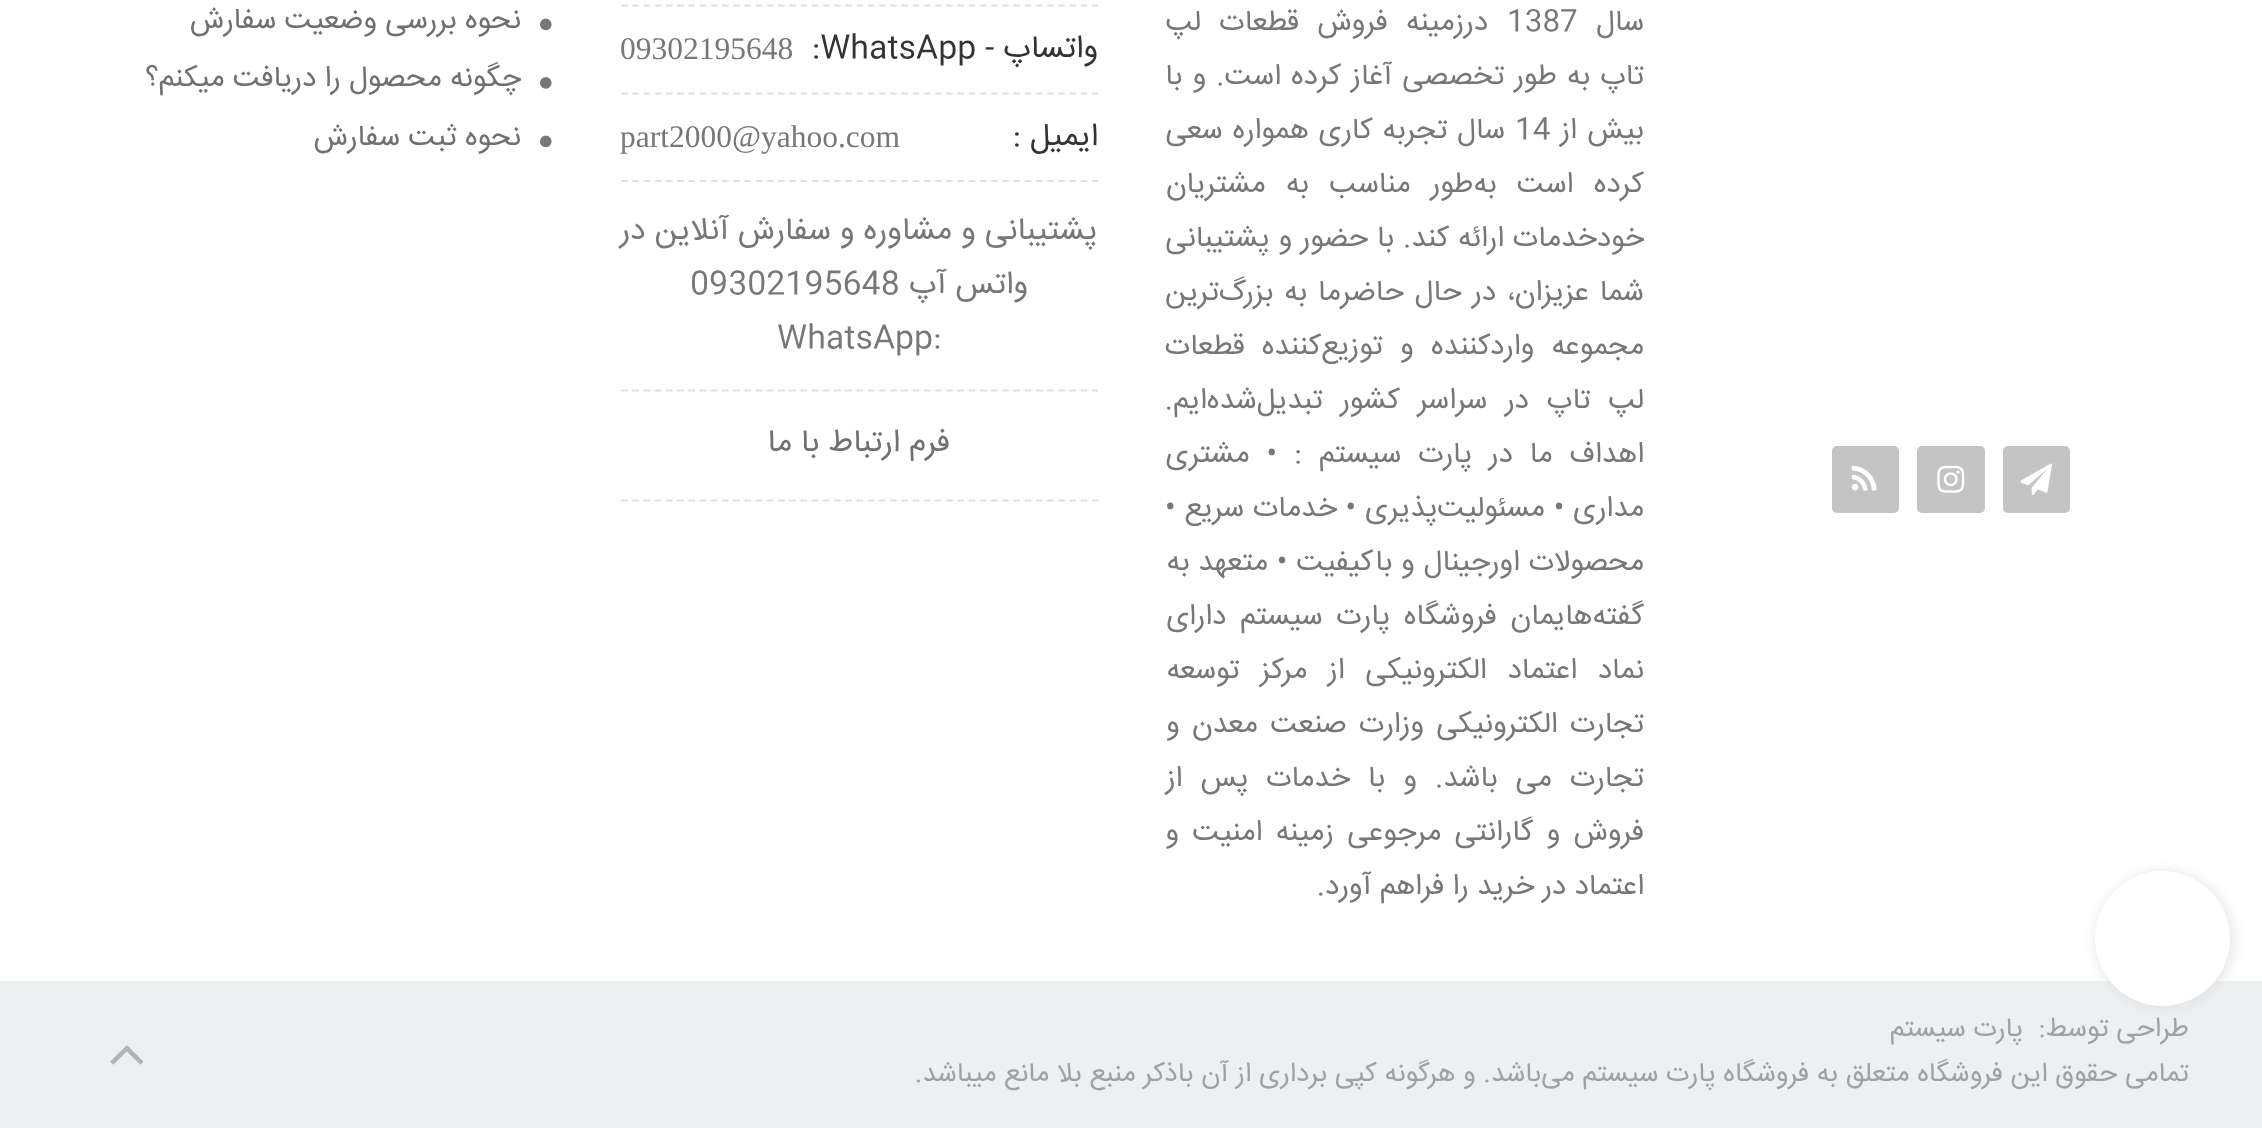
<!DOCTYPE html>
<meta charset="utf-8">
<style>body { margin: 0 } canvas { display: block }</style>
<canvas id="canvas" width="2262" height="1128"></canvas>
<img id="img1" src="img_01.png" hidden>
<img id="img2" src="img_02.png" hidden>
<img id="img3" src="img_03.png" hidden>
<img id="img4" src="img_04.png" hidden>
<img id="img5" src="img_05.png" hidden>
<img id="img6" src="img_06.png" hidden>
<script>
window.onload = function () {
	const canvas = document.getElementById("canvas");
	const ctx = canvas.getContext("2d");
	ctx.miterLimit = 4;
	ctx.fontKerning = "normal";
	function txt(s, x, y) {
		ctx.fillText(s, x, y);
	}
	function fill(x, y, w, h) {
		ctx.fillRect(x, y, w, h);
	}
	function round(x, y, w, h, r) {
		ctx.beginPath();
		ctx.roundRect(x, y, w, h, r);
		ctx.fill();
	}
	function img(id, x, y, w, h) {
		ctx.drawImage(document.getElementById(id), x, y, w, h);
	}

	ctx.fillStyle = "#FFFFFF";
	fill(0, 0, 2262, 1128);
	ctx.beginPath();
	ctx.moveTo(621, 5.5);
	ctx.lineTo(1098, 5.5);
	ctx.strokeStyle = "#E0E0E0";
	ctx.lineWidth = 2.2;
	ctx.setLineDash([6.75, 4.46]);
	ctx.stroke();
	ctx.beginPath();
	ctx.moveTo(621, 93.5);
	ctx.lineTo(1098, 93.5);
	ctx.stroke();
	ctx.beginPath();
	ctx.moveTo(621, 181);
	ctx.lineTo(1098, 181);
	ctx.stroke();
	ctx.beginPath();
	ctx.moveTo(621, 390.5);
	ctx.lineTo(1098, 390.5);
	ctx.stroke();
	ctx.beginPath();
	ctx.moveTo(621, 500.5);
	ctx.lineTo(1098, 500.5);
	ctx.stroke();
	img("img1", 540, 18, 12, 13);
	img("img2", 540, 77, 12, 12);
	img("img1", 540, 135, 12, 13);
	ctx.fillStyle = "#C4C4C4";
	round(2003, 446, 67, 67, 5);
	img("img3", 2020, 463, 32, 32);
	round(1917, 446, 68, 67, 5);
	img("img4", 1937, 465, 28, 28);
	round(1832, 446, 67, 67, 5);
	img("img5", 1851, 465, 26, 26);
	ctx.fillStyle = "#EBF0F3";
	fill(0, 981, 2262, 147);
	ctx.fillStyle = "#E0E0E0";
	ctx.filter = "blur(7px)";
	ctx.beginPath();
	ctx.roundRect(2097, 873, 135, 135, 67.5);
	ctx.fill();
	ctx.filter = "none";
	ctx.fillStyle = "#FFFFFF";
	ctx.beginPath();
	ctx.arc(2162.5, 938.5, 67.5, 0, Math.PI * 2);
	ctx.fill();
	img("img6", 110, 1045, 33, 20);
	ctx.direction = "rtl";
	ctx.font = "29.25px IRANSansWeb";
	ctx.fillStyle = "#777777";
	txt("سال", 1644, 30);
	ctx.direction = "ltr";
	txt("1387", 1507, 30);
	ctx.wordSpacing = "10px";
	ctx.direction = "rtl";
	txt("درزمینه فروش قطعات لپ", 1488, 30);
	ctx.wordSpacing = "1.75px";
	txt("تاپ به طور تخصصی آغاز کرده است. و با", 1644, 84);
	ctx.wordSpacing = "2px";
	txt("بیش از", 1644, 138);
	ctx.wordSpacing = "0px";
	ctx.direction = "ltr";
	txt("14", 1515, 138);
	ctx.wordSpacing = "1.5px";
	ctx.direction = "rtl";
	txt("سال تجربه کاری همواره سعی", 1505, 138);
	ctx.wordSpacing = "12px";
	txt("کرده است به‌طور مناسب به مشتریان", 1644, 192);
	ctx.wordSpacing = "0.5px";
	txt("خودخدمات ارائه کند. با حضور و پشتیبانی", 1644, 246);
	ctx.wordSpacing = "2.5px";
	txt("شما عزیزان، در حال حاضرما به بزرگ‌ترین", 1644, 300);
	ctx.wordSpacing = "9px";
	txt("مجموعه واردکننده و توزیع‌کننده قطعات", 1644, 354);
	ctx.wordSpacing = "9.5px";
	txt("لپ تاپ در سراسر کشور تبدیل‌شده‌ایم.", 1644, 408);
	ctx.wordSpacing = "8.75px";
	txt("اهداف ما در پارت سیستم : • مشتری", 1644, 462);
	ctx.wordSpacing = "0.5px";
	txt("مداری • مسئولیت‌پذیری • خدمات سریع •", 1644, 516);
	txt("محصولات اورجینال و باکیفیت • متعهد به", 1644, 570);
	ctx.wordSpacing = "5.5px";
	txt("گفته‌هایمان فروشگاه پارت سیستم دارای", 1644, 624);
	ctx.wordSpacing = "12.5px";
	txt("نماد اعتماد الکترونیکی از مرکز توسعه", 1644, 678);
	ctx.wordSpacing = "4px";
	txt("تجارت الکترونیکی وزارت صنعت معدن و", 1644, 732);
	ctx.wordSpacing = "9.75px";
	txt("تجارت می باشد. و با خدمات پس از", 1644, 786);
	ctx.wordSpacing = "5px";
	txt("فروش و گارانتی مرجوعی زمینه امنیت و", 1644, 840);
	ctx.wordSpacing = "0px";
	txt("اعتماد در خرید را فراهم آورد.", 1644, 894);
	ctx.font = "31.5px IRANSansWeb";
	ctx.fillStyle = "#333333";
	txt("واتساپ -", 1098, 57);
	ctx.direction = "ltr";
	txt(":WhatsApp", 812, 57);
	ctx.font = "31.5px Liberation Serif";
	ctx.fillStyle = "#777777";
	txt("09302195648", 620, 59);
	ctx.direction = "rtl";
	ctx.font = "31.5px IRANSansWeb";
	ctx.fillStyle = "#333333";
	txt("ایمیل :", 1098, 145);
	ctx.direction = "ltr";
	ctx.font = "31.5px Liberation Serif";
	ctx.fillStyle = "#777777";
	txt("part2000@yahoo.com", 620, 147);
	ctx.direction = "rtl";
	ctx.font = "31.5px IRANSansWeb";
	txt("پشتیبانی و مشاوره و سفارش آنلاین در", 1097, 239);
	txt("واتس آپ", 1028, 293);
	ctx.direction = "ltr";
	txt("09302195648", 690, 293);
	txt("WhatsApp:", 777, 347);
	ctx.direction = "rtl";
	ctx.fillStyle = "#707070";
	txt("فرم ارتباط با ما", 950, 451);
	ctx.font = "29.25px IRANSansWeb";
	txt("نحوه بررسی وضعیت سفارش", 521, 28);
	txt("چگونه محصول را دریافت میکنم؟", 521, 86);
	txt("نحوه ثبت سفارش", 521, 145);
	ctx.font = "27px IRANSansWeb";
	ctx.fillStyle = "#A1A1A1";
	txt("طراحی توسط:", 2189, 1036);
	txt("پارت سیستم", 2023, 1036);
	txt("تمامی حقوق این فروشگاه متعلق به فروشگاه پارت سیستم می‌باشد. و هرگونه کپی برداری از آن باذکر منبع بلا مانع میباشد.", 2189, 1081);
};
</script>
